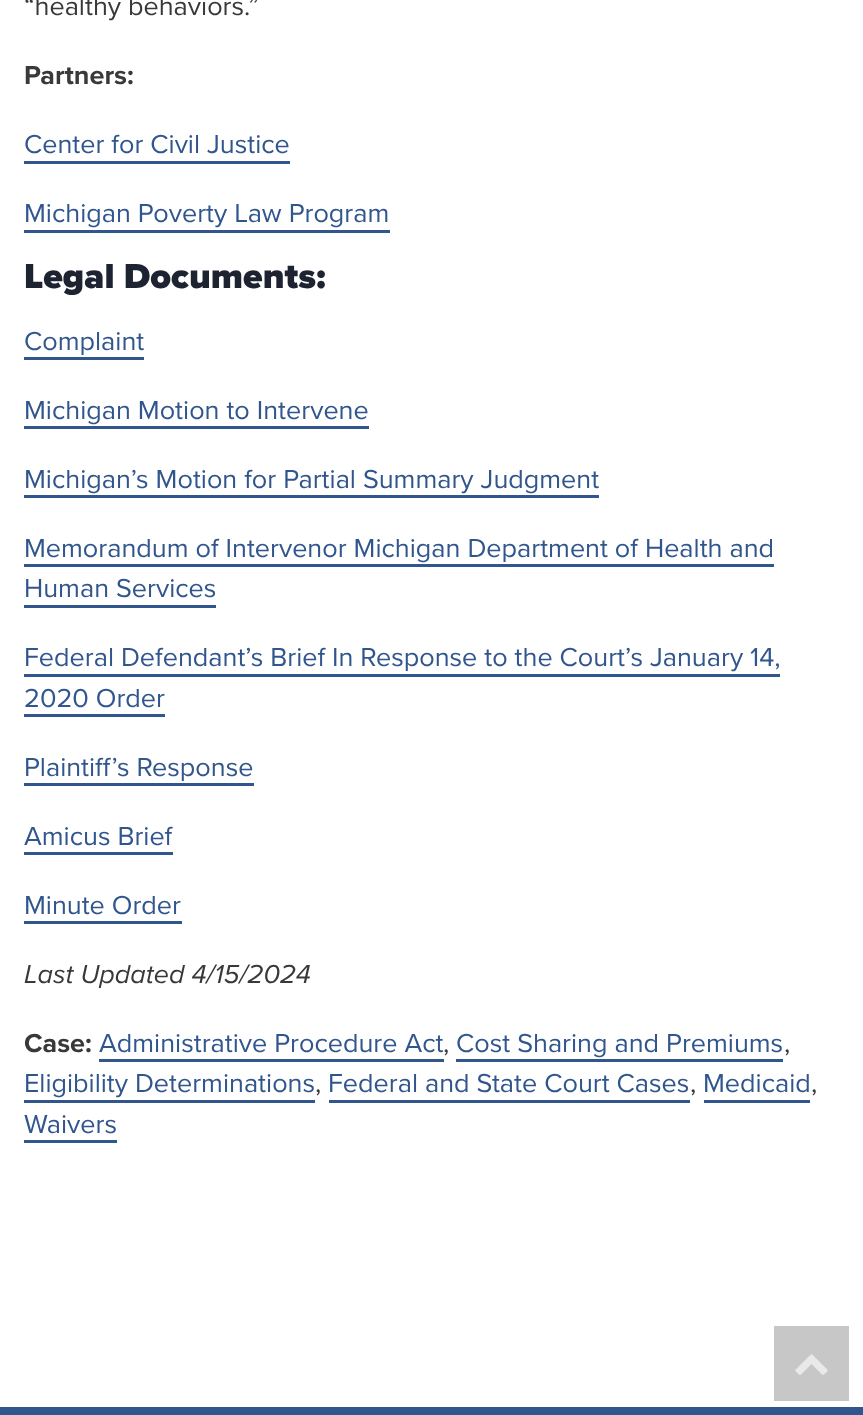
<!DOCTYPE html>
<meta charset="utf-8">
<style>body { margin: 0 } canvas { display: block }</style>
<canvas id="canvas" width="863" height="1415"></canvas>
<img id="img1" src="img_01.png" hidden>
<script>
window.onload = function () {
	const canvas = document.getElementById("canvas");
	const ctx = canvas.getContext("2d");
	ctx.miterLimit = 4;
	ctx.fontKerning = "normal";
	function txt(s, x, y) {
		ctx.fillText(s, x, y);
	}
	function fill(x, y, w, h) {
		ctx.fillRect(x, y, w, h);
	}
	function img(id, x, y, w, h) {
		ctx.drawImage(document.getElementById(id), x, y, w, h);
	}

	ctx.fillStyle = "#FFFFFF";
	fill(0, 0, 863, 1415);
	ctx.fillStyle = "#31568E";
	fill(24, 161, 266, 3);
	fill(24, 230, 366, 3);
	fill(24, 357, 120, 3);
	fill(24, 426, 345, 3);
	fill(24, 495, 575, 3);
	fill(24, 564, 750, 3);
	fill(24, 605, 192, 3);
	fill(24, 674, 756, 3);
	fill(24, 714, 141, 3);
	fill(24, 783, 230, 3);
	fill(24, 852, 149, 3);
	fill(24, 921, 158, 3);
	fill(99, 1059, 345, 3);
	fill(456, 1059, 327, 3);
	fill(24, 1100, 291, 3);
	fill(329, 1100, 361, 3);
	fill(704, 1100, 106, 3);
	fill(24, 1140, 93, 3);
	fill(0, 1407, 863, 8);
	ctx.fillStyle = "#C7C7C7";
	fill(774, 1326, 75, 75);
	img("img1", 795, 1354, 33, 21);
	ctx.font = "27px Proxima Nova";
	ctx.fillStyle = "#393939";
	txt("“healthy behaviors.”", 24, 15);
	ctx.font = "bold 27px Proxima Nova";
	txt("Partners:", 24, 84);
	ctx.font = "27px Proxima Nova";
	ctx.fillStyle = "#31568E";
	txt("Center for Civil Justice", 24, 153);
	txt("Michigan Poverty Law Program", 24, 222);
	ctx.font = "900 36px Proxima Nova";
	ctx.fillStyle = "#1E2332";
	txt("Legal Documents:", 24, 288);
	ctx.font = "27px Proxima Nova";
	ctx.fillStyle = "#31568E";
	txt("Complaint", 24, 350);
	txt("Michigan Motion to Intervene", 24, 419);
	txt("Michigan’s Motion for Partial Summary Judgment", 24, 488);
	txt("Memorandum of Intervenor Michigan Department of Health and", 24, 557);
	txt("Human Services", 24, 597);
	txt("Federal Defendant’s Brief In Response to the Court’s January 14,", 24, 666);
	txt("2020 Order", 24, 707);
	txt("Plaintiff’s Response", 24, 776);
	txt("Amicus Brief", 24, 845);
	txt("Minute Order", 24, 914);
	ctx.font = "italic 27px Proxima Nova";
	ctx.fillStyle = "#393939";
	txt("Last Updated 4/15/2024", 24, 983);
	ctx.font = "bold 27px Proxima Nova";
	txt("Case:", 24, 1052);
	ctx.font = "27px Proxima Nova";
	ctx.fillStyle = "#31568E";
	txt("Administrative Procedure Act", 99, 1052);
	ctx.fillStyle = "#393939";
	txt(",", 443, 1052);
	ctx.fillStyle = "#31568E";
	txt("Cost Sharing and Premiums", 456, 1052);
	ctx.fillStyle = "#393939";
	txt(",", 784, 1052);
	ctx.fillStyle = "#31568E";
	txt("Eligibility Determinations", 24, 1092);
	ctx.fillStyle = "#393939";
	txt(",", 315, 1092);
	ctx.fillStyle = "#31568E";
	txt("Federal and State Court Cases", 328, 1092);
	ctx.fillStyle = "#393939";
	txt(",", 690, 1092);
	ctx.fillStyle = "#31568E";
	txt("Medicaid", 703, 1092);
	ctx.fillStyle = "#393939";
	txt(",", 811, 1092);
	ctx.fillStyle = "#31568E";
	txt("Waivers", 24, 1133);
};
</script>
